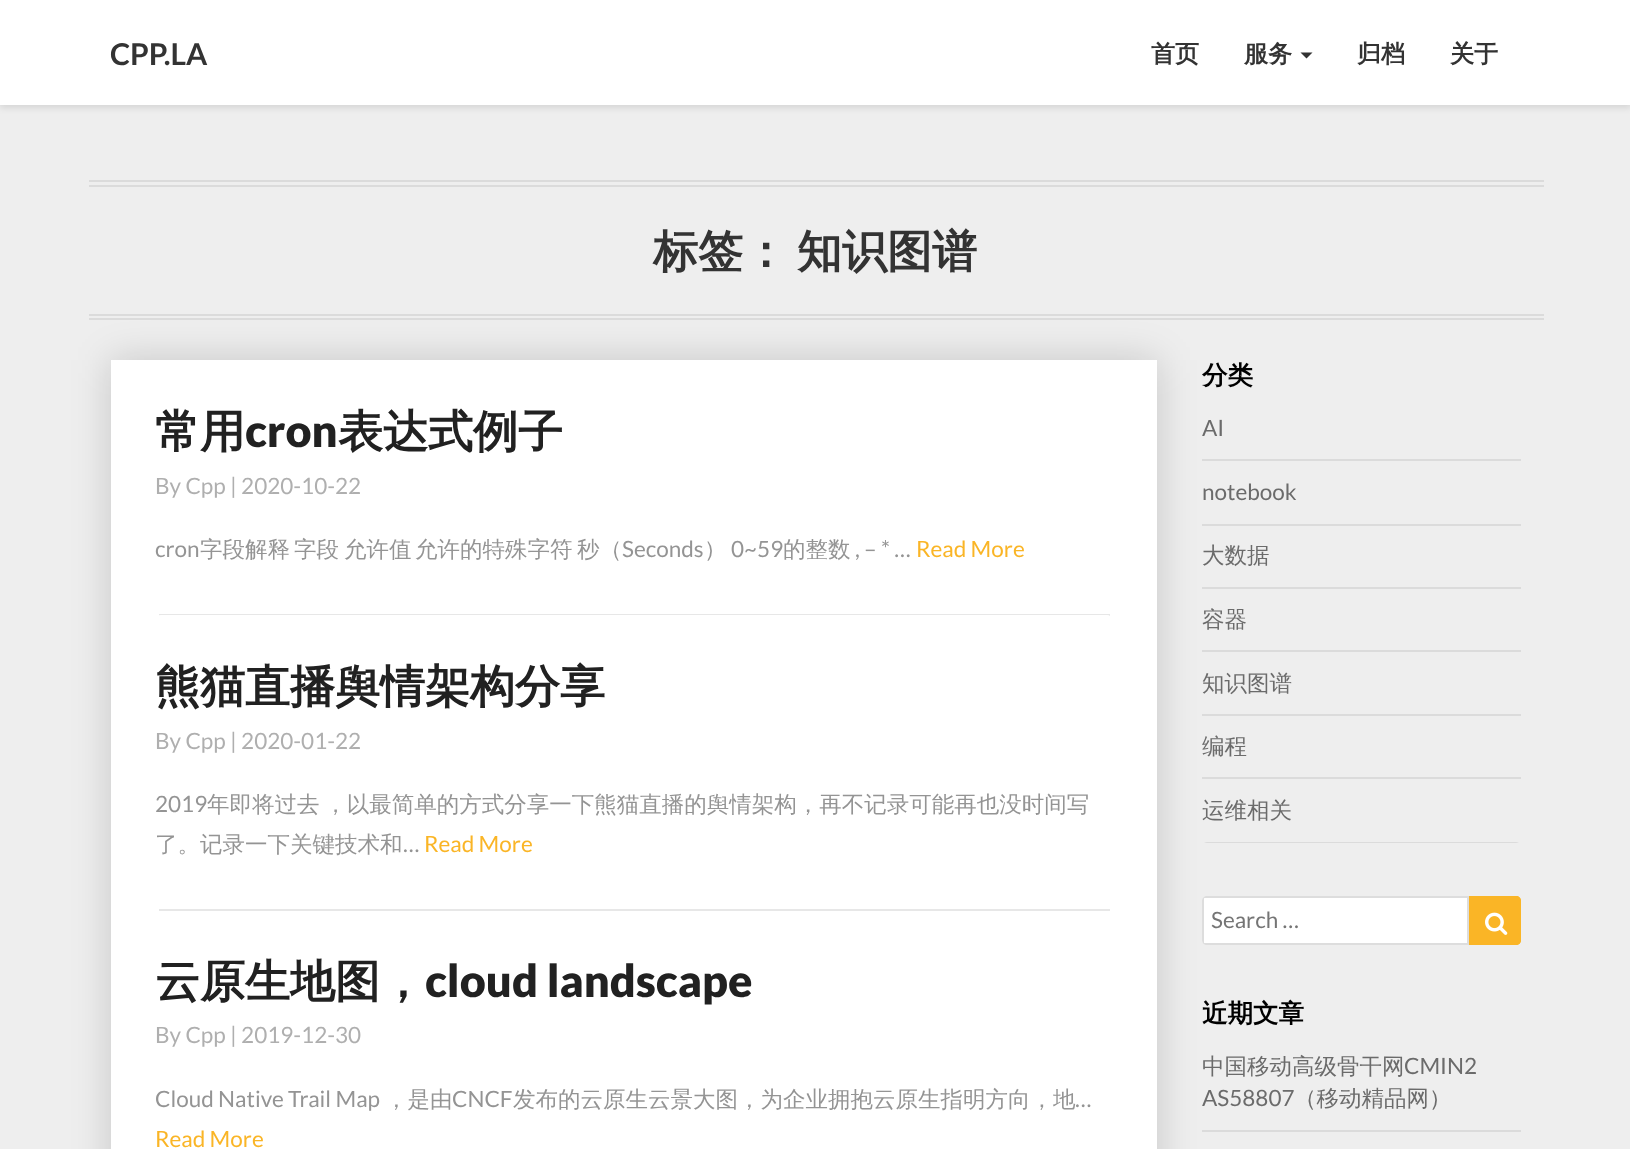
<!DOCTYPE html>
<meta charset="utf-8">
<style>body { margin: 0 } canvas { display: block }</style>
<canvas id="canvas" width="1630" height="1149"></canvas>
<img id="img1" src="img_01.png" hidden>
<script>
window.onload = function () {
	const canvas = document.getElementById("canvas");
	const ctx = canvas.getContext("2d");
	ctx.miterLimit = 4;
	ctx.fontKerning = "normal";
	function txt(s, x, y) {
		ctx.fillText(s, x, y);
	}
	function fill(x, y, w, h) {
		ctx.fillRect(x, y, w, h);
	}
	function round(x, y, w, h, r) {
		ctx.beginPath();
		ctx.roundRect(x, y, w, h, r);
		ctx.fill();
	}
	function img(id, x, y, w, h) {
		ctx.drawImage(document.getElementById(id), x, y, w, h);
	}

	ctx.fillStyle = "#EEEEEE";
	fill(0, 0, 1630, 1149);
	ctx.fillStyle = "rgba(0, 0, 0, 0.1)";
	ctx.filter = "blur(3px)";
	ctx.beginPath();
	ctx.rect(0, 3, 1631, 105);
	ctx.fill();
	ctx.filter = "none";
	ctx.fillStyle = "#FFFFFF";
	fill(0, 0, 1630, 105);
	ctx.fillStyle = "#333333";
	ctx.beginPath();
	ctx.moveTo(1300.5, 52.5);
	ctx.lineTo(1312.5, 52.5);
	ctx.lineTo(1306.5, 58.5);
	ctx.closePath();
	ctx.fill();
	ctx.fillStyle = "#DBDBDB";
	fill(89, 180, 1455, 2);
	fill(89, 185, 1455, 2);
	fill(89, 314, 1455, 2);
	fill(89, 318, 1455, 2);
	ctx.fillStyle = "rgba(0, 0, 0, 0.17)";
	ctx.filter = "blur(19px)";
	ctx.beginPath();
	ctx.rect(111, 360, 1046, 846);
	ctx.fill();
	ctx.filter = "none";
	ctx.fillStyle = "#FFFFFF";
	fill(111, 360, 1046, 789);
	ctx.fillStyle = "#E7E7E7";
	fill(159, 614, 951, 2);
	ctx.fillStyle = "#FFFFFF";
	round(156, 615, 956, 296, 5);
	ctx.fillStyle = "#E7E7E7";
	fill(159, 909, 951, 2);
	ctx.fillStyle = "#DBDBDB";
	fill(1202, 459, 319, 2);
	fill(1202, 524, 319, 2);
	fill(1202, 587, 319, 2);
	fill(1202, 650, 319, 2);
	fill(1202, 714, 319, 2);
	fill(1202, 777, 319, 2);
	ctx.save();
	ctx.beginPath();
	ctx.roundRect(1202, 360, 319, 483, 5);
	ctx.clip();
	fill(1202, 842, 319, 1);
	ctx.restore();
	ctx.fillStyle = "#FFFFFF";
	ctx.beginPath();
	ctx.roundRect(1202, 896, 267, 49, [5, 0, 0, 5]);
	ctx.fill();
	ctx.fillStyle = "#DDDDDD";
	ctx.beginPath();
	ctx.moveTo(1207, 896);
	ctx.bezierCurveTo(1204, 896, 1202, 898, 1202, 901);
	ctx.lineTo(1202, 940);
	ctx.bezierCurveTo(1202, 943, 1204, 945, 1207, 945);
	ctx.lineTo(1469, 945);
	ctx.lineTo(1469, 896);
	ctx.closePath();
	ctx.moveTo(1205, 898);
	ctx.bezierCurveTo(1204, 898, 1204, 898, 1204, 899);
	ctx.lineTo(1204, 942);
	ctx.bezierCurveTo(1204, 943, 1204, 943, 1205, 943);
	ctx.lineTo(1467, 943);
	ctx.lineTo(1467, 898);
	ctx.closePath();
	ctx.fill("evenodd");
	ctx.fillStyle = "#FAB526";
	ctx.beginPath();
	ctx.roundRect(1469, 896, 52, 49, [0, 5, 5, 0]);
	ctx.fill();
	ctx.beginPath();
	ctx.moveTo(1469, 896);
	ctx.lineTo(1469, 945);
	ctx.lineTo(1516, 945);
	ctx.bezierCurveTo(1519, 945, 1521, 943, 1521, 940);
	ctx.lineTo(1521, 901);
	ctx.bezierCurveTo(1521, 898, 1519, 896, 1516, 896);
	ctx.closePath();
	ctx.moveTo(1471, 898);
	ctx.lineTo(1471, 943);
	ctx.lineTo(1518, 943);
	ctx.bezierCurveTo(1519, 943, 1519, 943, 1519, 942);
	ctx.lineTo(1519, 899);
	ctx.bezierCurveTo(1519, 898, 1519, 898, 1518, 898);
	ctx.closePath();
	ctx.fill("evenodd");
	img("img1", 1485, 912, 23, 23);
	ctx.fillStyle = "#DBDBDB";
	fill(1202, 1130, 319, 2);
	ctx.font = "bold 30px Lato";
	ctx.fillStyle = "#333333";
	txt("CPP.LA", 110, 65);
	ctx.font = "bold 24px WenQuanYi Zen Hei";
	txt("首页", 1151, 62);
	txt("服务", 1244, 62);
	txt("归档", 1357, 62);
	txt("关于", 1450, 62);
	ctx.font = "bold 45px WenQuanYi Zen Hei";
	txt("标签：", 653, 267);
	txt("知识图谱", 797, 267);
	ctx.fillStyle = "#212121";
	txt("常用", 155, 447);
	ctx.font = "900 45px Lato";
	txt("cron", 245, 447);
	ctx.font = "bold 45px WenQuanYi Zen Hei";
	txt("表达式例子", 338, 447);
	ctx.font = "22.5px Lato";
	ctx.fillStyle = "#AFAFAF";
	txt("By Cpp | 2020-10-22", 155, 494);
	ctx.fillStyle = "#949494";
	txt("cron", 155, 557);
	ctx.font = "500 22.5px WenQuanYi Zen Hei";
	txt("字段解释", 200, 557);
	txt("字段", 294, 557);
	txt("允许值", 344, 557);
	txt("允许的特殊字符", 415, 557);
	txt("秒（", 577, 557);
	ctx.font = "22.5px Lato";
	txt("Seconds", 622, 557);
	ctx.font = "500 22.5px WenQuanYi Zen Hei";
	txt("）", 704, 557);
	ctx.font = "22.5px Lato";
	txt("0~59", 731, 557);
	ctx.font = "500 22.5px WenQuanYi Zen Hei";
	txt("的整数", 783, 557);
	ctx.font = "22.5px Lato";
	txt(", – * …", 855, 557);
	ctx.fillStyle = "#FAB526";
	txt("Read More", 916, 557);
	ctx.font = "bold 45px WenQuanYi Zen Hei";
	ctx.fillStyle = "#212121";
	txt("熊猫直播舆情架构分享", 155, 702);
	ctx.font = "22.5px Lato";
	ctx.fillStyle = "#AFAFAF";
	txt("By Cpp | 2020-01-22", 155, 749);
	ctx.fillStyle = "#949494";
	txt("2019", 155, 812);
	ctx.wordSpacing = "-2px";
	ctx.font = "500 22.5px WenQuanYi Zen Hei";
	txt("年即将过去 ，以最简单的方式分享一下熊猫直播的舆情架构，再不记录可能再也没时间写", 207, 812);
	ctx.wordSpacing = "0px";
	txt("了。记录一下关键技术和", 155, 852);
	ctx.font = "22.5px Lato";
	txt("…", 403, 852);
	ctx.fillStyle = "#FAB526";
	txt("Read More", 424, 852);
	ctx.font = "bold 45px WenQuanYi Zen Hei";
	ctx.fillStyle = "#212121";
	txt("云原生地图，", 155, 997);
	ctx.font = "900 45px Lato";
	txt("cloud landscape", 425, 997);
	ctx.font = "22.5px Lato";
	ctx.fillStyle = "#AFAFAF";
	txt("By Cpp | 2019-12-30", 155, 1043);
	ctx.fillStyle = "#949494";
	txt("Cloud Native Trail Map", 155, 1107);
	ctx.font = "500 22.5px WenQuanYi Zen Hei";
	txt("，是由", 385, 1107);
	ctx.font = "22.5px Lato";
	txt("CNCF", 452, 1107);
	ctx.font = "500 22.5px WenQuanYi Zen Hei";
	txt("发布的云原生云景大图，为企业拥抱云原生指明方向，地", 513, 1107);
	ctx.font = "22.5px Lato";
	txt("…", 1075, 1107);
	ctx.fillStyle = "#FAB526";
	txt("Read More", 155, 1147);
	ctx.font = "bold 25.5px WenQuanYi Zen Hei";
	ctx.fillStyle = "#000000";
	txt("分类", 1202, 384);
	ctx.font = "22.5px Lato";
	ctx.fillStyle = "#6B6B6B";
	txt("AI", 1202, 436);
	txt("notebook", 1202, 500);
	ctx.font = "500 22.5px WenQuanYi Zen Hei";
	txt("大数据", 1202, 563);
	txt("容器", 1202, 627);
	txt("知识图谱", 1202, 691);
	txt("编程", 1202, 754);
	txt("运维相关", 1202, 818);
	ctx.font = "22.5px Lato";
	ctx.fillStyle = "#757575";
	txt("Search …", 1211, 928);
	ctx.font = "bold 25.5px WenQuanYi Zen Hei";
	ctx.fillStyle = "#000000";
	txt("近期文章", 1202, 1022);
	ctx.font = "500 22.5px WenQuanYi Zen Hei";
	ctx.fillStyle = "#6B6B6B";
	txt("中国移动高级骨干网", 1202, 1074);
	ctx.font = "22.5px Lato";
	txt("CMIN2", 1404, 1074);
	txt("AS58807", 1202, 1106);
	ctx.font = "500 22.5px WenQuanYi Zen Hei";
	txt("（移动精品网）", 1294, 1106);
};
</script>
